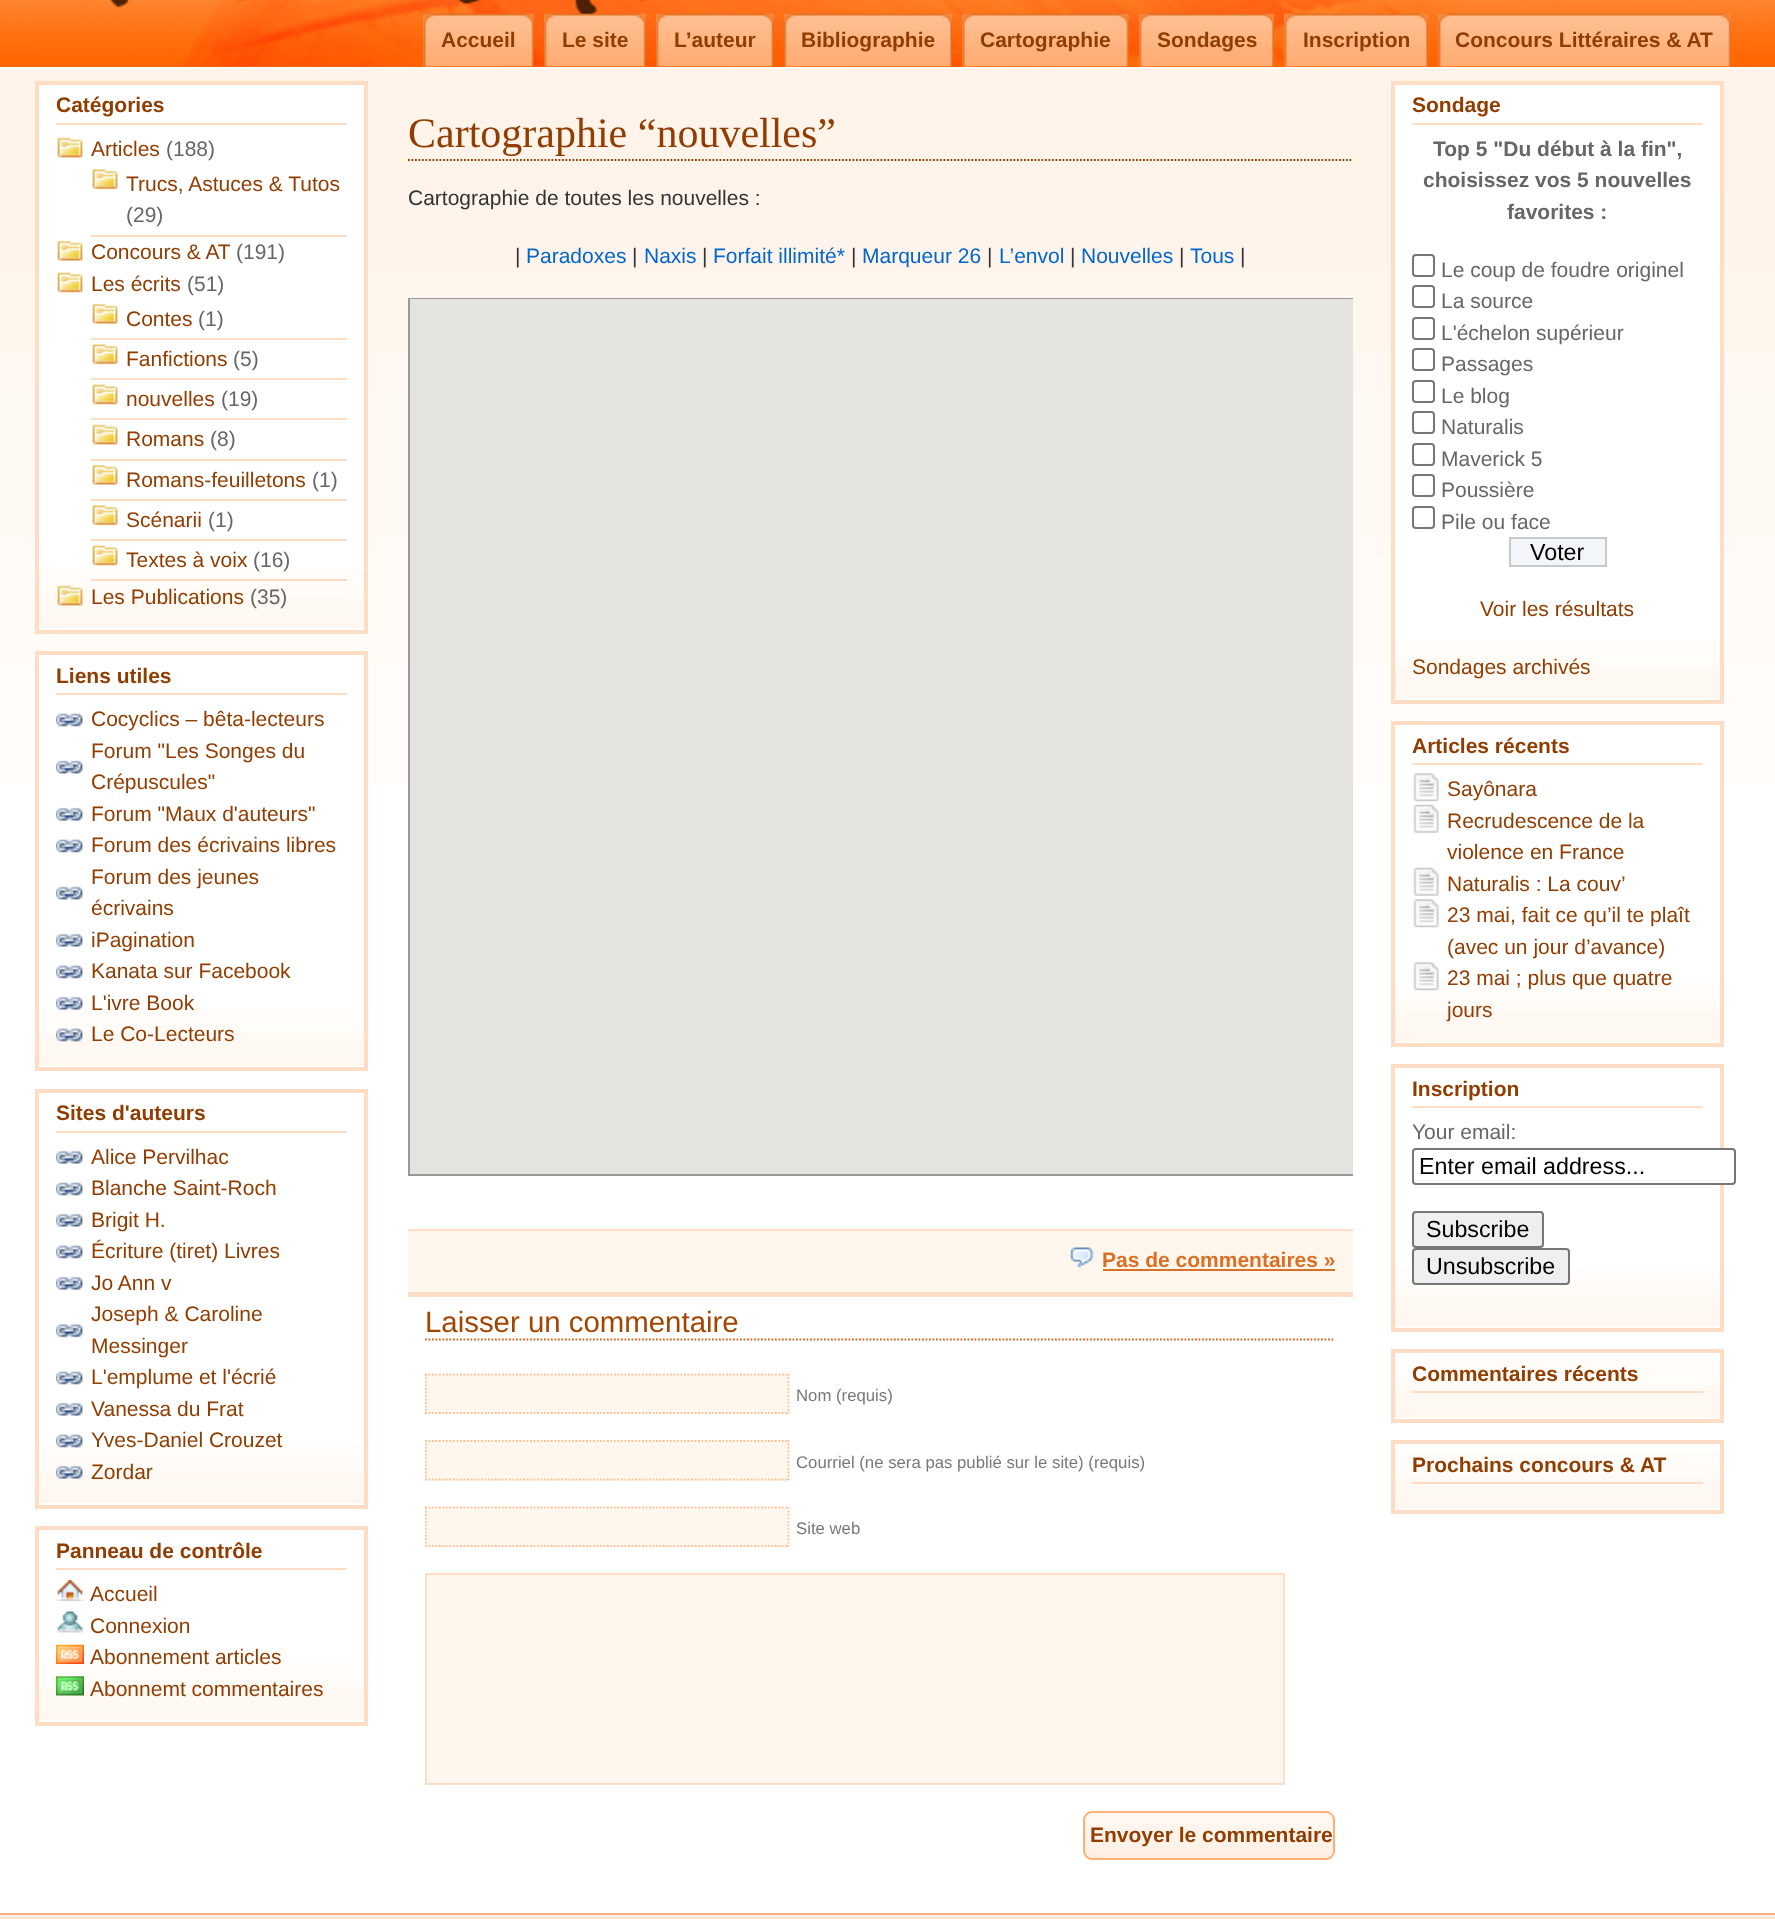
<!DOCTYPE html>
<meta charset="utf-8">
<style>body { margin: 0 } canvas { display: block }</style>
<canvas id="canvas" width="1775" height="1919"></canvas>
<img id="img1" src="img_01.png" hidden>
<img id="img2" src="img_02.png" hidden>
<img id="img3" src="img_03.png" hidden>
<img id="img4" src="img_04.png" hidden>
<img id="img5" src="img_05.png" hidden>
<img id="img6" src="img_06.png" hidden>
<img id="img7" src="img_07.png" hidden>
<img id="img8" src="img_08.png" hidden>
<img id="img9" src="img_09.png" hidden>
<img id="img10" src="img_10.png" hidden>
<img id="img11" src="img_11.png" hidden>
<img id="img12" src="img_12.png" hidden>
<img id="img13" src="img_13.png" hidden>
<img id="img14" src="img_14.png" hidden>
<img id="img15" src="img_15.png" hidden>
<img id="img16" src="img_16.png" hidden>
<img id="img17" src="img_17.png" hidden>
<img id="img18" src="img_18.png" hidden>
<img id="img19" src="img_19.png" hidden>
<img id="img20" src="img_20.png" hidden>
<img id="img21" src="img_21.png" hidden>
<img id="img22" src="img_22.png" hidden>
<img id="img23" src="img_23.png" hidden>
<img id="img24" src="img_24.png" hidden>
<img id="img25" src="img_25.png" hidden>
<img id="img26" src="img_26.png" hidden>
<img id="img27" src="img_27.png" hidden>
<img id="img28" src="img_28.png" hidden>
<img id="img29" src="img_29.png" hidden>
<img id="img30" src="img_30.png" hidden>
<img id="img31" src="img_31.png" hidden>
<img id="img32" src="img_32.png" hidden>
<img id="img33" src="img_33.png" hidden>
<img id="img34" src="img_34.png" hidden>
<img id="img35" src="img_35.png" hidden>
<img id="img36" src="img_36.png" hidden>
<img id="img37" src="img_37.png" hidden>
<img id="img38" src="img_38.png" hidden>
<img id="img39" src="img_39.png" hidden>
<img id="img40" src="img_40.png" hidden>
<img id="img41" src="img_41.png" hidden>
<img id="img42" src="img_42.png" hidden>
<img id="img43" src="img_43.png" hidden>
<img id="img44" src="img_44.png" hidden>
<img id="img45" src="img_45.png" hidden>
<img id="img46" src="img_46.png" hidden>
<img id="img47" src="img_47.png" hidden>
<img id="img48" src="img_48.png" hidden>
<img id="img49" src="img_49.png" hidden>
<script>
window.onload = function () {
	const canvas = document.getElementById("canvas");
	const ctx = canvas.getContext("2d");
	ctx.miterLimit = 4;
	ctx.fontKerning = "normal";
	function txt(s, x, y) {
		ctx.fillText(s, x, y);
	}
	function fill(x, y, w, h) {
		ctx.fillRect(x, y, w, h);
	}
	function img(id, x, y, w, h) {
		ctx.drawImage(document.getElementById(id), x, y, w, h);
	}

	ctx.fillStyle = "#FFFFFF";
	fill(0, 0, 1775, 1919);
	ctx.fillStyle = "#FF6702";
	fill(0, 54, 1775, 13);
	img("img1", 0, 0, 1775, 54);
	img("img2", 35, 0, 1706, 67);
	img("img3", 423, 13, 111, 54);
	img("img4", 423, 13, 15, 54);
	img("img5", 544, 13, 102, 54);
	img("img6", 544, 13, 15, 54);
	img("img7", 656, 13, 118, 54);
	img("img8", 656, 13, 15, 54);
	img("img9", 784, 13, 168, 54);
	img("img10", 784, 13, 14, 54);
	img("img11", 962, 13, 167, 54);
	img("img12", 962, 13, 15, 54);
	img("img13", 1139, 13, 135, 54);
	img("img14", 1139, 13, 15, 54);
	img("img15", 1284, 13, 144, 54);
	img("img16", 1284, 13, 15, 54);
	img("img17", 1438, 13, 293, 54);
	img("img18", 1438, 13, 15, 54);
	img("img19", 0, 69, 1775, 715);
	ctx.fillStyle = "#FFFFFF";
	fill(39, 85, 325, 545);
	img("img20", 39, 570, 325, 58);
	ctx.strokeStyle = "#FFDDC5";
	ctx.lineWidth = 4;
	ctx.strokeRect(37, 83, 329, 549);
	ctx.fillStyle = "#FFDDC5";
	fill(56, 123, 291, 2);
	img("img21", 57, 137, 26, 21);
	img("img22", 92, 169, 26, 21);
	fill(91, 235, 256, 2);
	img("img23", 57, 240, 26, 21);
	img("img24", 57, 272, 26, 21);
	img("img25", 92, 303, 26, 21);
	fill(91, 338, 256, 2);
	img("img22", 92, 344, 26, 21);
	fill(91, 378, 256, 2);
	img("img26", 92, 384, 26, 21);
	fill(91, 418, 256, 2);
	img("img27", 92, 424, 26, 21);
	fill(91, 459, 256, 2);
	img("img25", 92, 464, 26, 21);
	fill(91, 499, 256, 2);
	img("img22", 92, 505, 26, 21);
	fill(91, 539, 256, 2);
	img("img26", 92, 545, 26, 21);
	fill(91, 579, 256, 2);
	img("img28", 57, 585, 26, 21);
	ctx.fillStyle = "#FFFFFF";
	fill(39, 655, 325, 129);
	img("img29", 39, 1008, 325, 58);
	ctx.strokeRect(37, 653, 329, 416);
	ctx.fillStyle = "#FFDDC5";
	fill(56, 693, 291, 2);
	img("img30", 56, 713, 27, 14);
	img("img31", 56, 760, 27, 14);
	img("img32", 56, 807, 27, 14);
	img("img30", 56, 839, 27, 14);
	img("img31", 56, 886, 27, 14);
	img("img32", 56, 933, 27, 14);
	img("img30", 56, 965, 27, 14);
	img("img33", 56, 996, 27, 14);
	img("img34", 56, 1028, 27, 14);
	img("img20", 39, 1445, 325, 58);
	ctx.strokeRect(37, 1091, 329, 416);
	fill(56, 1131, 291, 2);
	img("img32", 56, 1150, 27, 14);
	img("img30", 56, 1182, 27, 14);
	img("img32", 56, 1213, 27, 14);
	img("img30", 56, 1245, 27, 14);
	img("img32", 56, 1276, 27, 14);
	img("img35", 56, 1324, 27, 14);
	img("img30", 56, 1371, 27, 14);
	img("img32", 56, 1402, 27, 14);
	img("img36", 56, 1434, 27, 14);
	img("img37", 56, 1465, 27, 14);
	img("img20", 39, 1662, 325, 58);
	ctx.strokeRect(37, 1528, 329, 196);
	fill(56, 1568, 291, 2);
	img("img38", 56, 1580, 28, 21);
	img("img39", 56, 1611, 28, 22);
	img("img40", 56, 1644, 28, 20);
	img("img41", 56, 1676, 28, 20);
	ctx.beginPath();
	ctx.moveTo(408, 160);
	ctx.lineTo(1353, 160);
	ctx.strokeStyle = "#913D01";
	ctx.lineWidth = 1.8;
	ctx.setLineDash([1.75, 1.75]);
	ctx.stroke();
	ctx.save();
	ctx.beginPath();
	ctx.rect(385, 68, 968, 1845);
	ctx.clip();
	ctx.strokeStyle = "#999999";
	ctx.lineWidth = 2;
	ctx.setLineDash([]);
	ctx.strokeRect(409, 299, 946, 876);
	ctx.restore();
	ctx.fillStyle = "#E5E3DF";
	fill(410, 299, 943, 875);
	ctx.fillStyle = "#FFF6EE";
	fill(408, 1231, 945, 61);
	ctx.fillStyle = "#FFDDC5";
	fill(408, 1229, 945, 2);
	fill(408, 1292, 945, 5);
	img("img42", 1069, 1247, 26, 21);
	ctx.fillStyle = "#DB7025";
	fill(1103, 1269, 232, 2);
	ctx.beginPath();
	ctx.moveTo(425, 1339.5);
	ctx.lineTo(1335, 1339.5);
	ctx.strokeStyle = "#D4691E";
	ctx.stroke();
	ctx.fillStyle = "#FFF6EE";
	fill(425, 1374, 364, 40);
	ctx.beginPath();
	ctx.moveTo(425, 1374.5);
	ctx.lineTo(789, 1374.5);
	ctx.strokeStyle = "#FFC195";
	ctx.stroke();
	ctx.beginPath();
	ctx.moveTo(788.5, 1374);
	ctx.lineTo(788.5, 1414);
	ctx.stroke();
	ctx.beginPath();
	ctx.moveTo(425, 1413);
	ctx.lineTo(789, 1413);
	ctx.stroke();
	ctx.beginPath();
	ctx.moveTo(426, 1374);
	ctx.lineTo(426, 1414);
	ctx.stroke();
	fill(425, 1440, 364, 41);
	ctx.beginPath();
	ctx.moveTo(425, 1441);
	ctx.lineTo(789, 1441);
	ctx.stroke();
	ctx.beginPath();
	ctx.moveTo(788.5, 1440);
	ctx.lineTo(788.5, 1480.5);
	ctx.stroke();
	ctx.beginPath();
	ctx.moveTo(425, 1479.5);
	ctx.lineTo(789, 1479.5);
	ctx.stroke();
	ctx.beginPath();
	ctx.moveTo(426, 1440);
	ctx.lineTo(426, 1480.5);
	ctx.stroke();
	fill(425, 1507, 364, 40);
	ctx.beginPath();
	ctx.moveTo(425, 1507.5);
	ctx.lineTo(789, 1507.5);
	ctx.stroke();
	ctx.beginPath();
	ctx.moveTo(788.5, 1507);
	ctx.lineTo(788.5, 1547);
	ctx.stroke();
	ctx.beginPath();
	ctx.moveTo(425, 1546);
	ctx.lineTo(789, 1546);
	ctx.stroke();
	ctx.beginPath();
	ctx.moveTo(426, 1507);
	ctx.lineTo(426, 1547);
	ctx.stroke();
	ctx.beginPath();
	ctx.rect(426, 1574, 858, 210);
	ctx.fill();
	ctx.strokeStyle = "#FFDDC5";
	ctx.lineWidth = 2;
	ctx.setLineDash([]);
	ctx.stroke();
	img("img43", 1085, 1813, 250, 47);
	ctx.beginPath();
	ctx.roundRect(1084, 1812, 250, 47, 8);
	ctx.strokeStyle = "#FEB078";
	ctx.stroke();
	ctx.fillStyle = "#FFFFFF";
	fill(1395, 85, 325, 615);
	img("img44", 1395, 640, 325, 58);
	ctx.strokeStyle = "#FFDDC5";
	ctx.lineWidth = 4;
	ctx.strokeRect(1393, 83, 329, 619);
	ctx.fillStyle = "#FFDDC5";
	fill(1412, 123, 291, 2);
	ctx.beginPath();
	ctx.roundRect(1413, 255, 21, 21, 3);
	ctx.strokeStyle = "#767676";
	ctx.lineWidth = 2;
	ctx.stroke();
	ctx.beginPath();
	ctx.roundRect(1413, 286, 21, 21, 3);
	ctx.stroke();
	ctx.beginPath();
	ctx.roundRect(1413, 318, 21, 21, 3);
	ctx.stroke();
	ctx.beginPath();
	ctx.roundRect(1413, 349, 21, 21, 3);
	ctx.stroke();
	ctx.beginPath();
	ctx.roundRect(1413, 381, 21, 21, 3);
	ctx.stroke();
	ctx.beginPath();
	ctx.roundRect(1413, 412, 21, 21, 3);
	ctx.stroke();
	ctx.beginPath();
	ctx.roundRect(1413, 444, 21, 21, 3);
	ctx.stroke();
	ctx.beginPath();
	ctx.roundRect(1413, 475, 21, 21, 3);
	ctx.stroke();
	ctx.beginPath();
	ctx.roundRect(1413, 507, 21, 21, 3);
	ctx.stroke();
	ctx.fillStyle = "#F3F6F8";
	ctx.beginPath();
	ctx.rect(1510, 538, 96, 28);
	ctx.fill();
	ctx.strokeStyle = "#C8C8C8";
	ctx.stroke();
	ctx.fillStyle = "#FFFFFF";
	fill(1395, 725, 325, 59);
	img("img44", 1395, 983, 325, 58);
	ctx.strokeStyle = "#FFDDC5";
	ctx.lineWidth = 4;
	ctx.strokeRect(1393, 723, 329, 322);
	ctx.fillStyle = "#FFDDC5";
	fill(1412, 763, 291, 2);
	img("img45", 1413, 773, 26, 29);
	img("img46", 1413, 804, 26, 29);
	img("img46", 1413, 867, 26, 29);
	img("img45", 1413, 899, 26, 29);
	img("img47", 1413, 962, 26, 29);
	img("img48", 1395, 1269, 325, 58);
	ctx.strokeRect(1393, 1066, 329, 264);
	fill(1412, 1106, 291, 2);
	ctx.fillStyle = "#FFFFFF";
	ctx.beginPath();
	ctx.roundRect(1413, 1149, 322, 35, 3);
	ctx.fill();
	ctx.strokeStyle = "#767676";
	ctx.lineWidth = 2;
	ctx.stroke();
	ctx.fillStyle = "#EFEFEF";
	ctx.beginPath();
	ctx.roundRect(1413, 1212, 130, 35, 3);
	ctx.fill();
	ctx.stroke();
	ctx.beginPath();
	ctx.roundRect(1413, 1249, 156, 35, 3);
	ctx.fill();
	ctx.stroke();
	img("img48", 1395, 1360, 325, 58);
	ctx.strokeStyle = "#FFDDC5";
	ctx.lineWidth = 4;
	ctx.strokeRect(1393, 1351, 329, 70);
	ctx.fillStyle = "#FFDDC5";
	fill(1412, 1391, 291, 2);
	img("img48", 1395, 1451, 325, 58);
	ctx.strokeRect(1393, 1442, 329, 70);
	fill(1412, 1482, 291, 2);
	img("img49", 0, 1915, 1775, 4);
	ctx.fillStyle = "#FEB078";
	fill(0, 1913, 1775, 2);
	ctx.font = "bold 21px Liberation Sans";
	ctx.fillStyle = "#913D01";
	txt("Accueil", 441, 47);
	txt("Le site", 562, 47);
	txt("L’auteur", 674, 47);
	txt("Bibliographie", 801, 47);
	txt("Cartographie", 980, 47);
	txt("Sondages", 1157, 47);
	txt("Inscription", 1303, 47);
	txt("Concours Littéraires & AT", 1455, 47);
	txt("Catégories", 56, 112);
	ctx.font = "21px Liberation Sans";
	txt("Articles", 91, 156);
	ctx.fillStyle = "#666666";
	txt("(188)", 166, 156);
	ctx.fillStyle = "#913D01";
	txt("Trucs, Astuces & Tutos", 126, 191);
	ctx.fillStyle = "#666666";
	txt("(29)", 126, 222);
	ctx.fillStyle = "#913D01";
	txt("Concours & AT", 91, 259);
	ctx.fillStyle = "#666666";
	txt("(191)", 236, 259);
	ctx.fillStyle = "#913D01";
	txt("Les écrits", 91, 291);
	ctx.fillStyle = "#666666";
	txt("(51)", 187, 291);
	ctx.fillStyle = "#913D01";
	txt("Contes", 126, 326);
	ctx.fillStyle = "#666666";
	txt("(1)", 198, 326);
	ctx.fillStyle = "#913D01";
	txt("Fanfictions", 126, 366);
	ctx.fillStyle = "#666666";
	txt("(5)", 233, 366);
	ctx.fillStyle = "#913D01";
	txt("nouvelles", 126, 406);
	ctx.fillStyle = "#666666";
	txt("(19)", 221, 406);
	ctx.fillStyle = "#913D01";
	txt("Romans", 126, 446);
	ctx.fillStyle = "#666666";
	txt("(8)", 210, 446);
	ctx.fillStyle = "#913D01";
	txt("Romans-feuilletons", 126, 487);
	ctx.fillStyle = "#666666";
	txt("(1)", 312, 487);
	ctx.fillStyle = "#913D01";
	txt("Scénarii", 126, 527);
	ctx.fillStyle = "#666666";
	txt("(1)", 208, 527);
	ctx.fillStyle = "#913D01";
	txt("Textes à voix", 126, 567);
	ctx.fillStyle = "#666666";
	txt("(16)", 253, 567);
	ctx.fillStyle = "#913D01";
	txt("Les Publications", 91, 604);
	ctx.fillStyle = "#666666";
	txt("(35)", 250, 604);
	ctx.font = "bold 21px Liberation Sans";
	ctx.fillStyle = "#913D01";
	txt("Liens utiles", 56, 683);
	ctx.font = "21px Liberation Sans";
	txt("Cocyclics – bêta-lecteurs", 91, 726);
	txt("Forum \"Les Songes du", 91, 758);
	txt("Crépuscules\"", 91, 789);
	txt("Forum \"Maux d'auteurs\"", 91, 821);
	txt("Forum des écrivains libres", 91, 852);
	txt("Forum des jeunes", 91, 884);
	txt("écrivains", 91, 915);
	txt("iPagination", 91, 947);
	txt("Kanata sur Facebook", 91, 978);
	txt("L'ivre Book", 91, 1010);
	txt("Le Co-Lecteurs", 91, 1041);
	ctx.font = "bold 21px Liberation Sans";
	txt("Sites d'auteurs", 56, 1120);
	ctx.font = "21px Liberation Sans";
	txt("Alice Pervilhac", 91, 1164);
	txt("Blanche Saint-Roch", 91, 1195);
	txt("Brigit H.", 91, 1227);
	txt("Écriture (tiret) Livres", 91, 1258);
	txt("Jo Ann v", 91, 1290);
	txt("Joseph & Caroline", 91, 1321);
	txt("Messinger", 91, 1353);
	txt("L'emplume et l'écrié", 91, 1384);
	txt("Vanessa du Frat", 91, 1416);
	txt("Yves-Daniel Crouzet", 91, 1447);
	txt("Zordar", 91, 1479);
	ctx.font = "bold 21px Liberation Sans";
	txt("Panneau de contrôle", 56, 1558);
	ctx.font = "21px Liberation Sans";
	txt("Accueil", 90, 1601);
	txt("Connexion", 90, 1633);
	txt("Abonnement articles", 90, 1664);
	txt("Abonnemt commentaires", 90, 1696);
	ctx.font = "42px Liberation Serif";
	txt("Cartographie “nouvelles”", 408, 147);
	ctx.font = "21px Liberation Sans";
	ctx.fillStyle = "#333333";
	txt("Cartographie de toutes les nouvelles :", 408, 205);
	txt("|", 515, 263);
	ctx.fillStyle = "#0066CC";
	txt("Paradoxes", 526, 263);
	ctx.fillStyle = "#333333";
	txt("|", 632, 263);
	ctx.fillStyle = "#0066CC";
	txt("Naxis", 644, 263);
	ctx.fillStyle = "#333333";
	txt("|", 702, 263);
	ctx.fillStyle = "#0066CC";
	txt("Forfait illimité*", 713, 263);
	ctx.fillStyle = "#333333";
	txt("|", 851, 263);
	ctx.fillStyle = "#0066CC";
	txt("Marqueur 26", 862, 263);
	ctx.fillStyle = "#333333";
	txt("|", 987, 263);
	ctx.fillStyle = "#0066CC";
	txt("L’envol", 999, 263);
	ctx.fillStyle = "#333333";
	txt("|", 1070, 263);
	ctx.fillStyle = "#0066CC";
	txt("Nouvelles", 1081, 263);
	ctx.fillStyle = "#333333";
	txt("|", 1179, 263);
	ctx.fillStyle = "#0066CC";
	txt("Tous", 1190, 263);
	ctx.fillStyle = "#333333";
	txt("|", 1240, 263);
	ctx.font = "bold 21px Liberation Sans";
	ctx.fillStyle = "#DB7025";
	txt("Pas de commentaires »", 1102, 1267);
	ctx.font = "29.4px Liberation Sans";
	ctx.fillStyle = "#A44401";
	txt("Laisser un commentaire", 425, 1332);
	ctx.font = "16.75px Liberation Sans";
	ctx.fillStyle = "#787878";
	txt("Nom (requis)", 796, 1401);
	txt("Courriel (ne sera pas publié sur le site) (requis)", 796, 1468);
	txt("Site web", 796, 1534);
	ctx.font = "bold 21px Liberation Sans";
	ctx.fillStyle = "#913D01";
	txt("Envoyer le commentaire", 1090, 1842);
	txt("Sondage", 1412, 112);
	ctx.fillStyle = "#666666";
	txt("Top 5 \"Du début à la fin\",", 1433, 156);
	txt("choisissez vos 5 nouvelles", 1423, 187);
	txt("favorites :", 1507, 219);
	ctx.font = "21px Liberation Sans";
	txt("Le coup de foudre originel", 1441, 277);
	txt("La source", 1441, 308);
	txt("L'échelon supérieur", 1441, 340);
	txt("Passages", 1441, 371);
	txt("Le blog", 1441, 403);
	txt("Naturalis", 1441, 434);
	txt("Maverick 5", 1441, 466);
	txt("Poussière", 1441, 497);
	txt("Pile ou face", 1441, 529);
	ctx.font = "23.25px Liberation Sans";
	ctx.fillStyle = "#000000";
	txt("Voter", 1530, 560);
	ctx.font = "21px Liberation Sans";
	ctx.fillStyle = "#913D01";
	txt("Voir les résultats", 1480, 616);
	txt("Sondages archivés", 1412, 674);
	ctx.font = "bold 21px Liberation Sans";
	txt("Articles récents", 1412, 753);
	ctx.font = "21px Liberation Sans";
	txt("Sayônara", 1447, 796);
	txt("Recrudescence de la", 1447, 828);
	txt("violence en France", 1447, 859);
	txt("Naturalis : La couv’", 1447, 891);
	txt("23 mai, fait ce qu’il te plaît", 1447, 922);
	txt("(avec un jour d’avance)", 1447, 954);
	txt("23 mai ; plus que quatre", 1447, 985);
	txt("jours", 1447, 1017);
	ctx.font = "bold 21px Liberation Sans";
	txt("Inscription", 1412, 1096);
	ctx.font = "21px Liberation Sans";
	ctx.fillStyle = "#666666";
	txt("Your email:", 1412, 1139);
	ctx.font = "23.25px Liberation Sans";
	ctx.fillStyle = "#000000";
	txt("Enter email address...", 1419, 1174);
	txt("Subscribe", 1426, 1237);
	txt("Unsubscribe", 1426, 1274);
	ctx.font = "bold 21px Liberation Sans";
	ctx.fillStyle = "#913D01";
	txt("Commentaires récents", 1412, 1381);
	txt("Prochains concours & AT", 1412, 1472);
};
</script>
